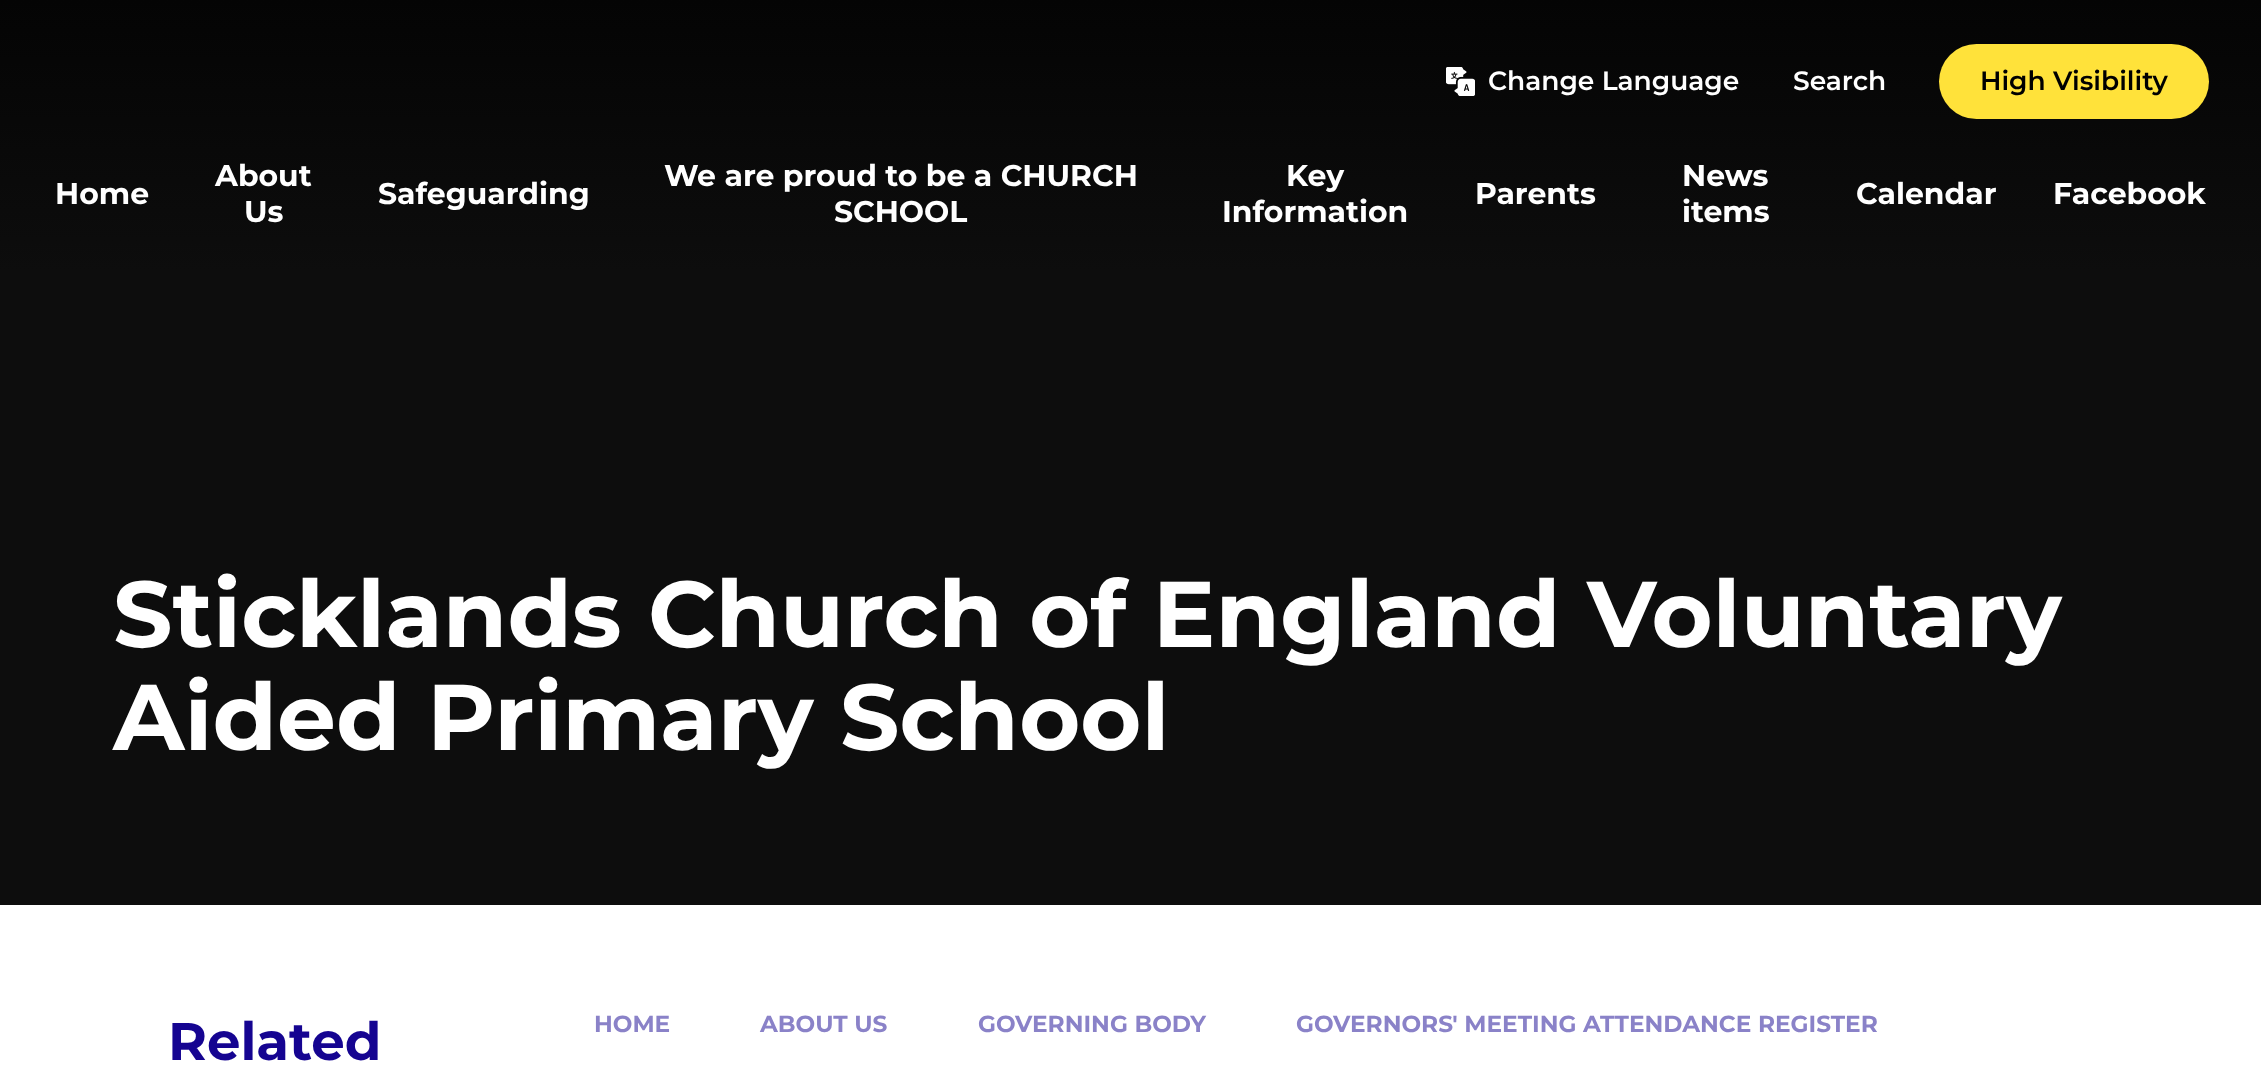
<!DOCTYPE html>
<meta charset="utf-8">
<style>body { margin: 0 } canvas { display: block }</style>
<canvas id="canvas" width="2261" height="1067"></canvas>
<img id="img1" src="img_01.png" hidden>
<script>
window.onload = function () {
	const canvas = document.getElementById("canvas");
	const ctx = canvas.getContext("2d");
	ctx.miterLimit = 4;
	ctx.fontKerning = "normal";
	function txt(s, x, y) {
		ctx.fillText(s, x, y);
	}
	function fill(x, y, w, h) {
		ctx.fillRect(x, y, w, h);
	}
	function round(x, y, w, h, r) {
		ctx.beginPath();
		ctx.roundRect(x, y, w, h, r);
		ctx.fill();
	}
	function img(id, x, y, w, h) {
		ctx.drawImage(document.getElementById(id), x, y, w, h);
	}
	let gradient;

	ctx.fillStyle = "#FFFFFF";
	fill(0, 0, 2261, 1067);
	gradient = ctx.createLinearGradient(1131, 0, 1131, 271);
	gradient.addColorStop(0, "#040404");
	gradient.addColorStop(1, "#0D0D0D");
	ctx.fillStyle = gradient;
	fill(0, 0, 2261, 271);
	img("img1", 1446, 67, 29, 29);
	ctx.fillStyle = "#FFE23A";
	round(1939, 44, 270, 75, 37.5);
	ctx.fillStyle = "#0D0D0D";
	fill(0, 271, 2261, 634);
	ctx.font = "600 26.5px Montserrat";
	ctx.fillStyle = "#FFFFFF";
	txt("Change Language", 1488, 90);
	txt("Search", 1793, 90);
	ctx.fillStyle = "#000000";
	txt("High Visibility", 1980, 90);
	ctx.font = "bold 29.9px Montserrat";
	ctx.fillStyle = "#FFFFFF";
	txt("Home", 55, 204);
	txt("About", 215, 186);
	txt("Us", 244, 222);
	txt("Safeguarding", 378, 204);
	txt("We are proud to be a CHURCH", 664, 186);
	txt("SCHOOL", 834, 222);
	txt("Key", 1286, 186);
	txt("Information", 1222, 222);
	txt("Parents", 1475, 204);
	txt("News", 1682, 186);
	txt("items", 1682, 222);
	txt("Calendar", 1856, 204);
	txt("Facebook", 2053, 204);
	ctx.font = "bold 93.3px Montserrat";
	txt("Sticklands Church of England Voluntary", 113, 647);
	txt("Aided Primary School", 113, 750);
	ctx.font = "bold 53px Montserrat";
	ctx.fillStyle = "#150491";
	txt("Related", 168, 1060);
	ctx.font = "bold 23.25px Montserrat";
	ctx.fillStyle = "#8A82C8";
	txt("HOME", 594, 1032);
	txt("ABOUT US", 760, 1032);
	txt("GOVERNING BODY", 978, 1032);
	txt("GOVERNORS' MEETING ATTENDANCE REGISTER", 1296, 1032);
};
</script>
